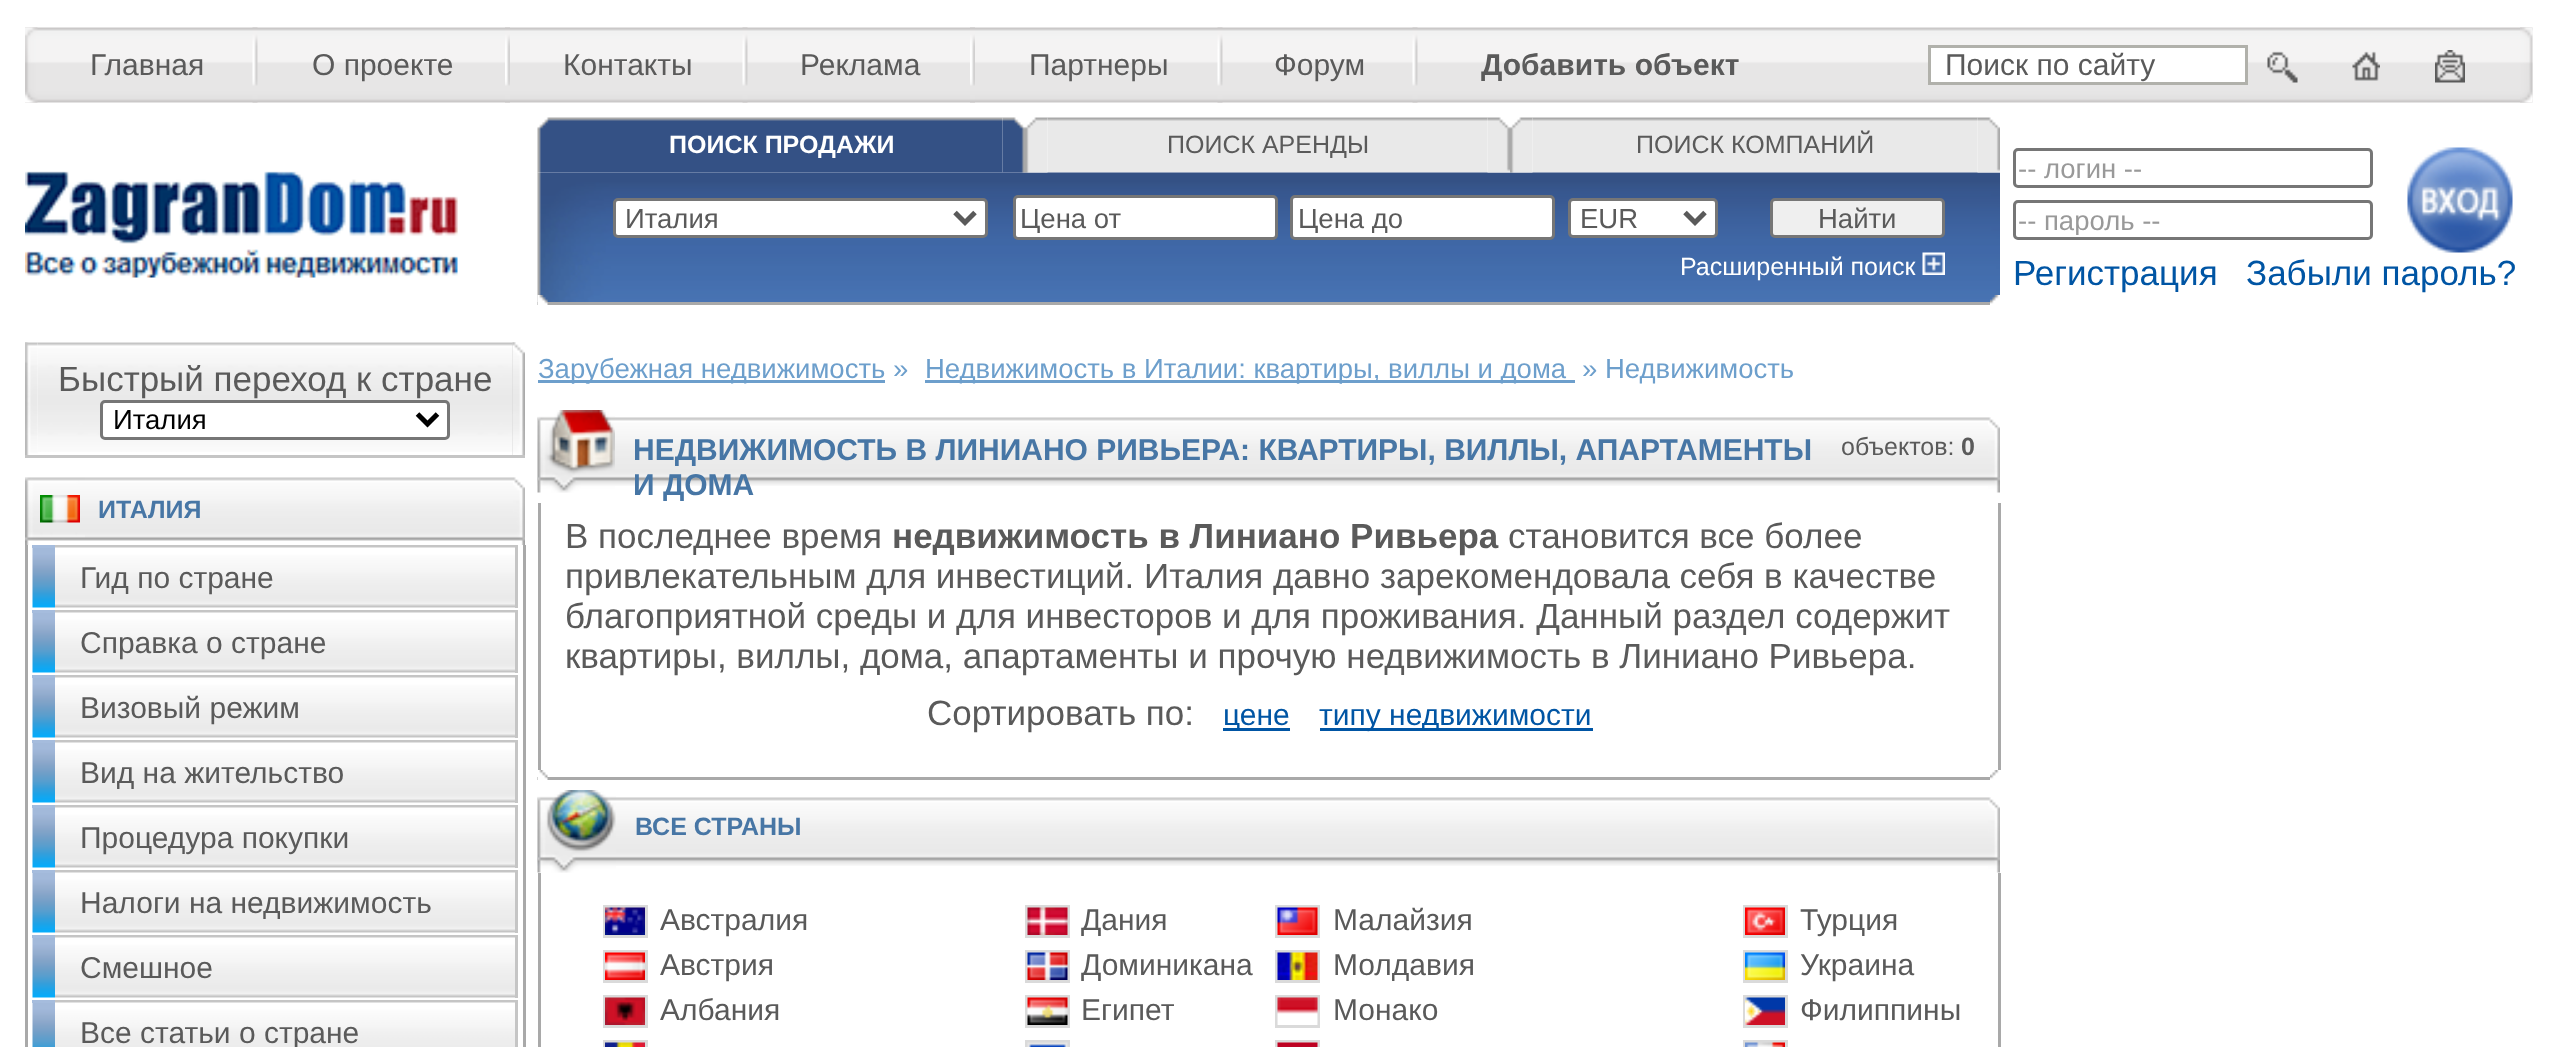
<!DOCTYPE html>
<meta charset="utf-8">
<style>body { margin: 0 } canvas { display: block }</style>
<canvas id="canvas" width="2556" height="1047"></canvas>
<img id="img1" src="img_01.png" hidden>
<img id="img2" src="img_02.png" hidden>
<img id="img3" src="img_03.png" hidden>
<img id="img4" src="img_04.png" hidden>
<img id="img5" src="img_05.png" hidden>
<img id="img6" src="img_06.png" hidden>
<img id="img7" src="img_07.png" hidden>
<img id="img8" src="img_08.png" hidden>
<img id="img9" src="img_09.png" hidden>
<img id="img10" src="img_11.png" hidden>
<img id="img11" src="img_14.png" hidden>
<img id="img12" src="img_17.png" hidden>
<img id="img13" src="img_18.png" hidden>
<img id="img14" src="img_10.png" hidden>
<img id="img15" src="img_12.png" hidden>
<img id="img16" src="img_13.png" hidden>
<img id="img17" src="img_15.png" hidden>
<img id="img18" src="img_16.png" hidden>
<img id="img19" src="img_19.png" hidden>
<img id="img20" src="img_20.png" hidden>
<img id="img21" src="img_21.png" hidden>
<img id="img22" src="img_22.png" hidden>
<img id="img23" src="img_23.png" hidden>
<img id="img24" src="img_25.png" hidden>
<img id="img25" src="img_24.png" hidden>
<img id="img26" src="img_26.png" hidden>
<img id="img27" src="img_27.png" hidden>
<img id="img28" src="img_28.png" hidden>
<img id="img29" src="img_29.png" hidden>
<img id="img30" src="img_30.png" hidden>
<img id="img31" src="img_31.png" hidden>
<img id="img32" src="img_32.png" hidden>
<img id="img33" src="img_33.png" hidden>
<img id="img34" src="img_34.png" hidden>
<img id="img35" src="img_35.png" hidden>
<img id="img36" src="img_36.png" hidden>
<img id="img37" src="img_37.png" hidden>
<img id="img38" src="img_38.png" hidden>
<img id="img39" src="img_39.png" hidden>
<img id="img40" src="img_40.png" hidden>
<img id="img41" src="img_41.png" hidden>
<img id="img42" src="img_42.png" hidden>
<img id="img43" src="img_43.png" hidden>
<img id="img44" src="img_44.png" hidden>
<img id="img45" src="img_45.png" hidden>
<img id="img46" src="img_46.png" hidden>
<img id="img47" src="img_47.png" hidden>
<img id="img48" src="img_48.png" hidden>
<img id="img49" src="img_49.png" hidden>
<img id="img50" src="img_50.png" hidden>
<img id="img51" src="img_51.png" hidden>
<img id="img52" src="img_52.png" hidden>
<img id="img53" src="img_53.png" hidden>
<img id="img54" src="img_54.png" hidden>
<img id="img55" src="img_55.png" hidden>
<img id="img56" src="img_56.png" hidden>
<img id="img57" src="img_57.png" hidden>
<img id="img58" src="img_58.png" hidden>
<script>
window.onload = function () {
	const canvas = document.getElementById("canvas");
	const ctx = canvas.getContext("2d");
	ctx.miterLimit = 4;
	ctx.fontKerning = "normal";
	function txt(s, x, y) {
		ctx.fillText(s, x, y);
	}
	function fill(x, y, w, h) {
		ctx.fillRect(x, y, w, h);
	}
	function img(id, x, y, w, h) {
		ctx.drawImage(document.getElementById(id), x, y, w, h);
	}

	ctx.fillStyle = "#FFFFFF";
	fill(0, 0, 2556, 1047);
	img("img1", 25, 27, 2508, 76);
	img("img2", 25, 27, 13, 76);
	img("img3", 2520, 27, 13, 76);
	img("img4", 252, 27, 6, 76);
	img("img5", 505, 27, 5, 76);
	img("img4", 742, 27, 6, 76);
	img("img5", 970, 27, 5, 76);
	img("img4", 1217, 27, 6, 76);
	img("img4", 1412, 27, 6, 76);
	ctx.beginPath();
	ctx.rect(1929.5, 46.5, 317, 37);
	ctx.fill();
	ctx.strokeStyle = "#B1B1AB";
	ctx.lineWidth = 3;
	ctx.stroke();
	img("img6", 2267, 51, 31, 32);
	img("img7", 2352, 51, 28, 30);
	img("img8", 2435, 50, 30, 33);
	img("img9", 25, 171, 433, 107);
	img("img10", 560, 117, 443, 56);
	img("img11", 1047, 117, 441, 56);
	img("img12", 1532, 117, 446, 56);
	img("img13", 537, 172, 1463, 130);
	img("img14", 537, 117, 23, 56);
	img("img15", 1002, 117, 23, 56);
	img("img16", 1025, 117, 23, 56);
	img("img17", 1487, 117, 23, 56);
	img("img18", 1510, 117, 23, 56);
	img("img17", 1977, 117, 23, 56);
	ctx.fillStyle = "#A9A9A9";
	fill(537, 302, 1453, 3);
	img("img19", 537, 295, 11, 10);
	img("img20", 1990, 295, 10, 10);
	ctx.fillStyle = "#FFFFFF";
	ctx.beginPath();
	ctx.roundRect(614.5, 199.5, 372, 37, 3.5);
	ctx.fill();
	ctx.strokeStyle = "#767676";
	ctx.stroke();
	ctx.beginPath();
	ctx.moveTo(955, 212.5);
	ctx.lineTo(965, 222.5);
	ctx.lineTo(975, 212.5);
	ctx.strokeStyle = "#5A5A5A";
	ctx.lineWidth = 5;
	ctx.stroke();
	ctx.beginPath();
	ctx.roundRect(1014.5, 196.5, 262, 42, 3.5);
	ctx.fill();
	ctx.strokeStyle = "#767676";
	ctx.lineWidth = 3;
	ctx.stroke();
	ctx.beginPath();
	ctx.roundRect(1291.5, 196.5, 262, 42, 3.5);
	ctx.fill();
	ctx.stroke();
	ctx.beginPath();
	ctx.roundRect(1569.5, 199.5, 147, 37, 3.5);
	ctx.fill();
	ctx.stroke();
	ctx.beginPath();
	ctx.moveTo(1685, 212.5);
	ctx.lineTo(1695, 222.5);
	ctx.lineTo(1705, 212.5);
	ctx.strokeStyle = "#5A5A5A";
	ctx.lineWidth = 5;
	ctx.stroke();
	ctx.fillStyle = "#EFEFEF";
	ctx.beginPath();
	ctx.roundRect(1771.5, 199.5, 172, 37, 3.5);
	ctx.fill();
	ctx.strokeStyle = "#767676";
	ctx.lineWidth = 3;
	ctx.stroke();
	img("img21", 1922, 252, 23, 23);
	ctx.beginPath();
	ctx.roundRect(2014.5, 149.5, 357, 37, 3.5);
	ctx.stroke();
	ctx.beginPath();
	ctx.roundRect(2014.5, 201.5, 357, 37, 3.5);
	ctx.stroke();
	img("img22", 2407, 147, 106, 106);
	img("img23", 25, 342, 4, 1);
	img("img24", 37, 342, 476, 110);
	img("img25", 25, 342, 13, 113);
	ctx.fillStyle = "#FFFFFF";
	ctx.beginPath();
	ctx.roundRect(101.5, 401.5, 347, 37, 3.5);
	ctx.fill();
	ctx.stroke();
	ctx.beginPath();
	ctx.moveTo(417.5, 414);
	ctx.lineTo(427.5, 424);
	ctx.lineTo(437.5, 414);
	ctx.strokeStyle = "#000000";
	ctx.lineWidth = 5;
	ctx.stroke();
	img("img26", 512, 342, 4, 113);
	img("img27", 512, 342, 13, 113);
	ctx.fillStyle = "#C5C5C5";
	fill(25, 455, 500, 3);
	img("img28", 85, 477, 428, 64);
	img("img29", 513, 477, 12, 68);
	img("img30", 25, 477, 60, 68);
	img("img31", 40, 495, 40, 28);
	ctx.fillStyle = "#A9A9A9";
	fill(523, 545, 3, 502);
	fill(25, 545, 3, 502);
	ctx.fillStyle = "#A5BCDD";
	fill(32, 545, 23, 3);
	ctx.fillStyle = "#C5C5C5";
	fill(55, 545, 463, 3);
	img("img32", 32, 548, 23, 60);
	img("img33", 55, 547, 460, 61);
	fill(515, 548, 3, 60);
	ctx.fillStyle = "#A5BCDD";
	fill(32, 610, 23, 3);
	ctx.fillStyle = "#C5C5C5";
	fill(55, 610, 463, 3);
	img("img32", 32, 613, 23, 60);
	img("img33", 55, 612, 460, 61);
	fill(515, 613, 3, 60);
	ctx.fillStyle = "#A5BCDD";
	fill(32, 675, 23, 3);
	ctx.fillStyle = "#C5C5C5";
	fill(55, 675, 463, 3);
	img("img32", 32, 678, 23, 60);
	img("img34", 55, 677, 460, 61);
	fill(515, 678, 3, 60);
	ctx.fillStyle = "#A5BCDD";
	fill(32, 740, 23, 3);
	ctx.fillStyle = "#C5C5C5";
	fill(55, 740, 463, 3);
	img("img32", 32, 743, 23, 60);
	img("img33", 55, 742, 460, 61);
	fill(515, 743, 3, 60);
	ctx.fillStyle = "#A5BCDD";
	fill(32, 805, 23, 3);
	ctx.fillStyle = "#C5C5C5";
	fill(55, 805, 463, 3);
	img("img32", 32, 808, 23, 60);
	img("img33", 55, 807, 460, 61);
	fill(515, 808, 3, 60);
	ctx.fillStyle = "#A5BCDD";
	fill(32, 870, 23, 3);
	ctx.fillStyle = "#C5C5C5";
	fill(55, 870, 463, 3);
	img("img32", 32, 873, 23, 60);
	img("img33", 55, 872, 460, 61);
	fill(515, 873, 3, 60);
	ctx.fillStyle = "#A5BCDD";
	fill(32, 935, 23, 3);
	ctx.fillStyle = "#C5C5C5";
	fill(55, 935, 463, 3);
	img("img32", 32, 938, 23, 60);
	img("img33", 55, 937, 460, 61);
	fill(515, 938, 3, 60);
	ctx.fillStyle = "#A5BCDD";
	fill(32, 1000, 23, 3);
	ctx.fillStyle = "#C5C5C5";
	fill(55, 1000, 463, 3);
	img("img35", 32, 1003, 23, 44);
	img("img36", 55, 1002, 460, 45);
	fill(515, 1003, 3, 44);
	ctx.fillStyle = "#6D9FCC";
	fill(538, 380, 347, 3);
	fill(925, 380, 650, 3);
	img("img37", 537, 417, 1451, 69);
	img("img38", 1988, 417, 12, 76);
	img("img39", 537, 410, 78, 83);
	ctx.fillStyle = "#A9A9A9";
	fill(1998, 503, 3, 267);
	fill(538, 503, 3, 267);
	ctx.fillStyle = "#0055A4";
	fill(1223, 728, 67, 3);
	fill(1320, 728, 273, 3);
	ctx.fillStyle = "#A9A9A9";
	fill(537, 777, 1453, 3);
	img("img40", 537, 770, 11, 10);
	img("img41", 1990, 770, 10, 10);
	img("img37", 537, 797, 1451, 69);
	img("img38", 1988, 797, 12, 76);
	img("img42", 537, 790, 79, 83);
	fill(1998, 873, 3, 174);
	fill(538, 873, 3, 174);
	ctx.strokeStyle = "#DADADA";
	ctx.lineWidth = 3;
	ctx.strokeRect(604.5, 906.5, 42, 30);
	img("img43", 605, 907, 40, 28);
	ctx.strokeRect(604.5, 951.5, 42, 30);
	img("img44", 605, 952, 40, 28);
	ctx.strokeRect(604.5, 996.5, 42, 30);
	img("img45", 605, 997, 40, 28);
	ctx.strokeRect(604.5, 1041.5, 42, 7);
	img("img46", 605, 1042, 40, 5);
	ctx.strokeRect(1026.5, 906.5, 42, 30);
	img("img47", 1027, 907, 41, 28);
	ctx.strokeRect(1026.5, 951.5, 42, 30);
	img("img48", 1027, 952, 41, 28);
	ctx.strokeRect(1026.5, 996.5, 42, 30);
	img("img49", 1027, 997, 41, 28);
	ctx.strokeRect(1026.5, 1041.5, 42, 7);
	img("img50", 1027, 1042, 41, 5);
	ctx.strokeRect(1276.5, 906.5, 42, 30);
	img("img51", 1277, 907, 41, 28);
	ctx.strokeRect(1276.5, 951.5, 42, 30);
	img("img52", 1277, 952, 41, 28);
	ctx.strokeRect(1276.5, 996.5, 42, 30);
	img("img53", 1277, 997, 41, 28);
	ctx.strokeRect(1276.5, 1041.5, 42, 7);
	img("img54", 1277, 1042, 41, 5);
	ctx.strokeRect(1744.5, 906.5, 42, 30);
	img("img55", 1745, 907, 40, 28);
	ctx.strokeRect(1744.5, 951.5, 42, 30);
	img("img56", 1745, 952, 40, 28);
	ctx.strokeRect(1744.5, 996.5, 42, 30);
	img("img57", 1745, 997, 40, 28);
	ctx.strokeRect(1744.5, 1041.5, 42, 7);
	img("img58", 1745, 1042, 40, 5);
	ctx.font = "30px Liberation Sans";
	ctx.fillStyle = "#5A5A5A";
	txt("Главная", 90, 75);
	txt("О проекте", 312, 75);
	txt("Контакты", 563, 75);
	txt("Реклама", 800, 75);
	txt("Партнеры", 1029, 75);
	txt("Форум", 1274, 75);
	ctx.font = "bold 30px Liberation Sans";
	txt("Добавить объект", 1481, 75);
	ctx.font = "30px Liberation Sans";
	txt("Поиск по сайту", 1945, 75);
	ctx.font = "bold 25px Liberation Sans";
	ctx.fillStyle = "#FFFFFF";
	txt("ПОИСК ПРОДАЖИ", 669, 153);
	ctx.font = "25px Liberation Sans";
	ctx.fillStyle = "#5A5A5A";
	txt("ПОИСК АРЕНДЫ", 1167, 153);
	txt("ПОИСК КОМПАНИЙ", 1636, 153);
	ctx.font = "27.5px Liberation Sans";
	txt("Италия", 625, 228);
	ctx.save();
	ctx.beginPath();
	ctx.rect(1020, 203, 250, 30);
	ctx.clip();
	txt("Цена от", 1020, 228);
	ctx.restore();
	ctx.save();
	ctx.beginPath();
	ctx.rect(1298, 203, 250, 30);
	ctx.clip();
	txt("Цена до", 1298, 228);
	ctx.restore();
	txt("EUR", 1580, 228);
	txt("Найти", 1818, 228);
	ctx.font = "25px Liberation Sans";
	ctx.fillStyle = "#FFFFFF";
	txt("Расширенный поиск", 1680, 275);
	ctx.font = "27.5px Liberation Sans";
	ctx.fillStyle = "#999999";
	txt("-- логин --", 2018, 178);
	ctx.save();
	ctx.beginPath();
	ctx.rect(2018, 205, 350, 30);
	ctx.clip();
	txt("-- пароль --", 2018, 230);
	ctx.restore();
	ctx.font = "35px Liberation Sans";
	ctx.fillStyle = "#0055A4";
	txt("Регистрация", 2013, 285);
	txt("Забыли пароль?", 2246, 285);
	ctx.fillStyle = "#5A5A5A";
	txt("Быстрый переход к стране", 58, 391);
	ctx.font = "27.5px Liberation Sans";
	ctx.fillStyle = "#000000";
	txt("Италия", 113, 429);
	ctx.font = "bold 25px Liberation Sans";
	ctx.fillStyle = "#4776A5";
	txt("ИТАЛИЯ", 98, 518);
	ctx.font = "30px Liberation Sans";
	ctx.fillStyle = "#5A5A5A";
	txt("Гид по стране", 80, 588);
	txt("Справка о стране", 80, 653);
	txt("Визовый режим", 80, 718);
	txt("Вид на жительство", 80, 783);
	txt("Процедура покупки", 80, 848);
	txt("Налоги на недвижимость", 80, 913);
	txt("Смешное", 80, 978);
	txt("Все статьи о стране", 80, 1043);
	ctx.font = "27.5px Liberation Sans";
	ctx.fillStyle = "#6D9FCC";
	txt("Зарубежная недвижимость »", 538, 378);
	txt("Недвижимость в Италии: квартиры, виллы и дома", 925, 378);
	txt("» Недвижимость", 1582, 378);
	ctx.font = "bold 30px Liberation Sans";
	ctx.fillStyle = "#4776A5";
	txt("НЕДВИЖИМОСТЬ В ЛИНИАНО РИВЬЕРА: КВАРТИРЫ, ВИЛЛЫ, АПАРТАМЕНТЫ", 633, 460);
	txt("И ДОМА", 633, 495);
	ctx.font = "25px Liberation Sans";
	ctx.fillStyle = "#5A5A5A";
	txt("объектов:", 1841, 455);
	ctx.font = "bold 25px Liberation Sans";
	txt("0", 1961, 455);
	ctx.font = "35px Liberation Sans";
	txt("В последнее время", 565, 548);
	ctx.font = "bold 35px Liberation Sans";
	txt("недвижимость в Линиано Ривьера", 892, 548);
	ctx.font = "35px Liberation Sans";
	txt("становится все более", 1508, 548);
	txt("привлекательным для инвестиций. Италия давно зарекомендовала себя в качестве", 565, 588);
	txt("благоприятной среды и для инвесторов и для проживания. Данный раздел содержит", 565, 628);
	txt("квартиры, виллы, дома, апартаменты и прочую недвижимость в Линиано Ривьера.", 565, 668);
	txt("Сортировать по:", 927, 725);
	ctx.font = "30px Liberation Sans";
	ctx.fillStyle = "#0055A4";
	txt("цене", 1223, 725);
	txt("типу недвижимости", 1319, 725);
	ctx.font = "bold 25px Liberation Sans";
	ctx.fillStyle = "#4776A5";
	txt("ВСЕ СТРАНЫ", 635, 835);
	ctx.font = "30px Liberation Sans";
	ctx.fillStyle = "#5A5A5A";
	txt("Австралия", 660, 930);
	txt("Австрия", 660, 975);
	txt("Албания", 660, 1020);
	txt("Дания", 1081, 930);
	txt("Доминикана", 1081, 975);
	txt("Египет", 1081, 1020);
	txt("Малайзия", 1333, 930);
	txt("Молдавия", 1333, 975);
	txt("Монако", 1333, 1020);
	txt("Турция", 1800, 930);
	txt("Украина", 1800, 975);
	txt("Филиппины", 1800, 1020);
};
</script>
